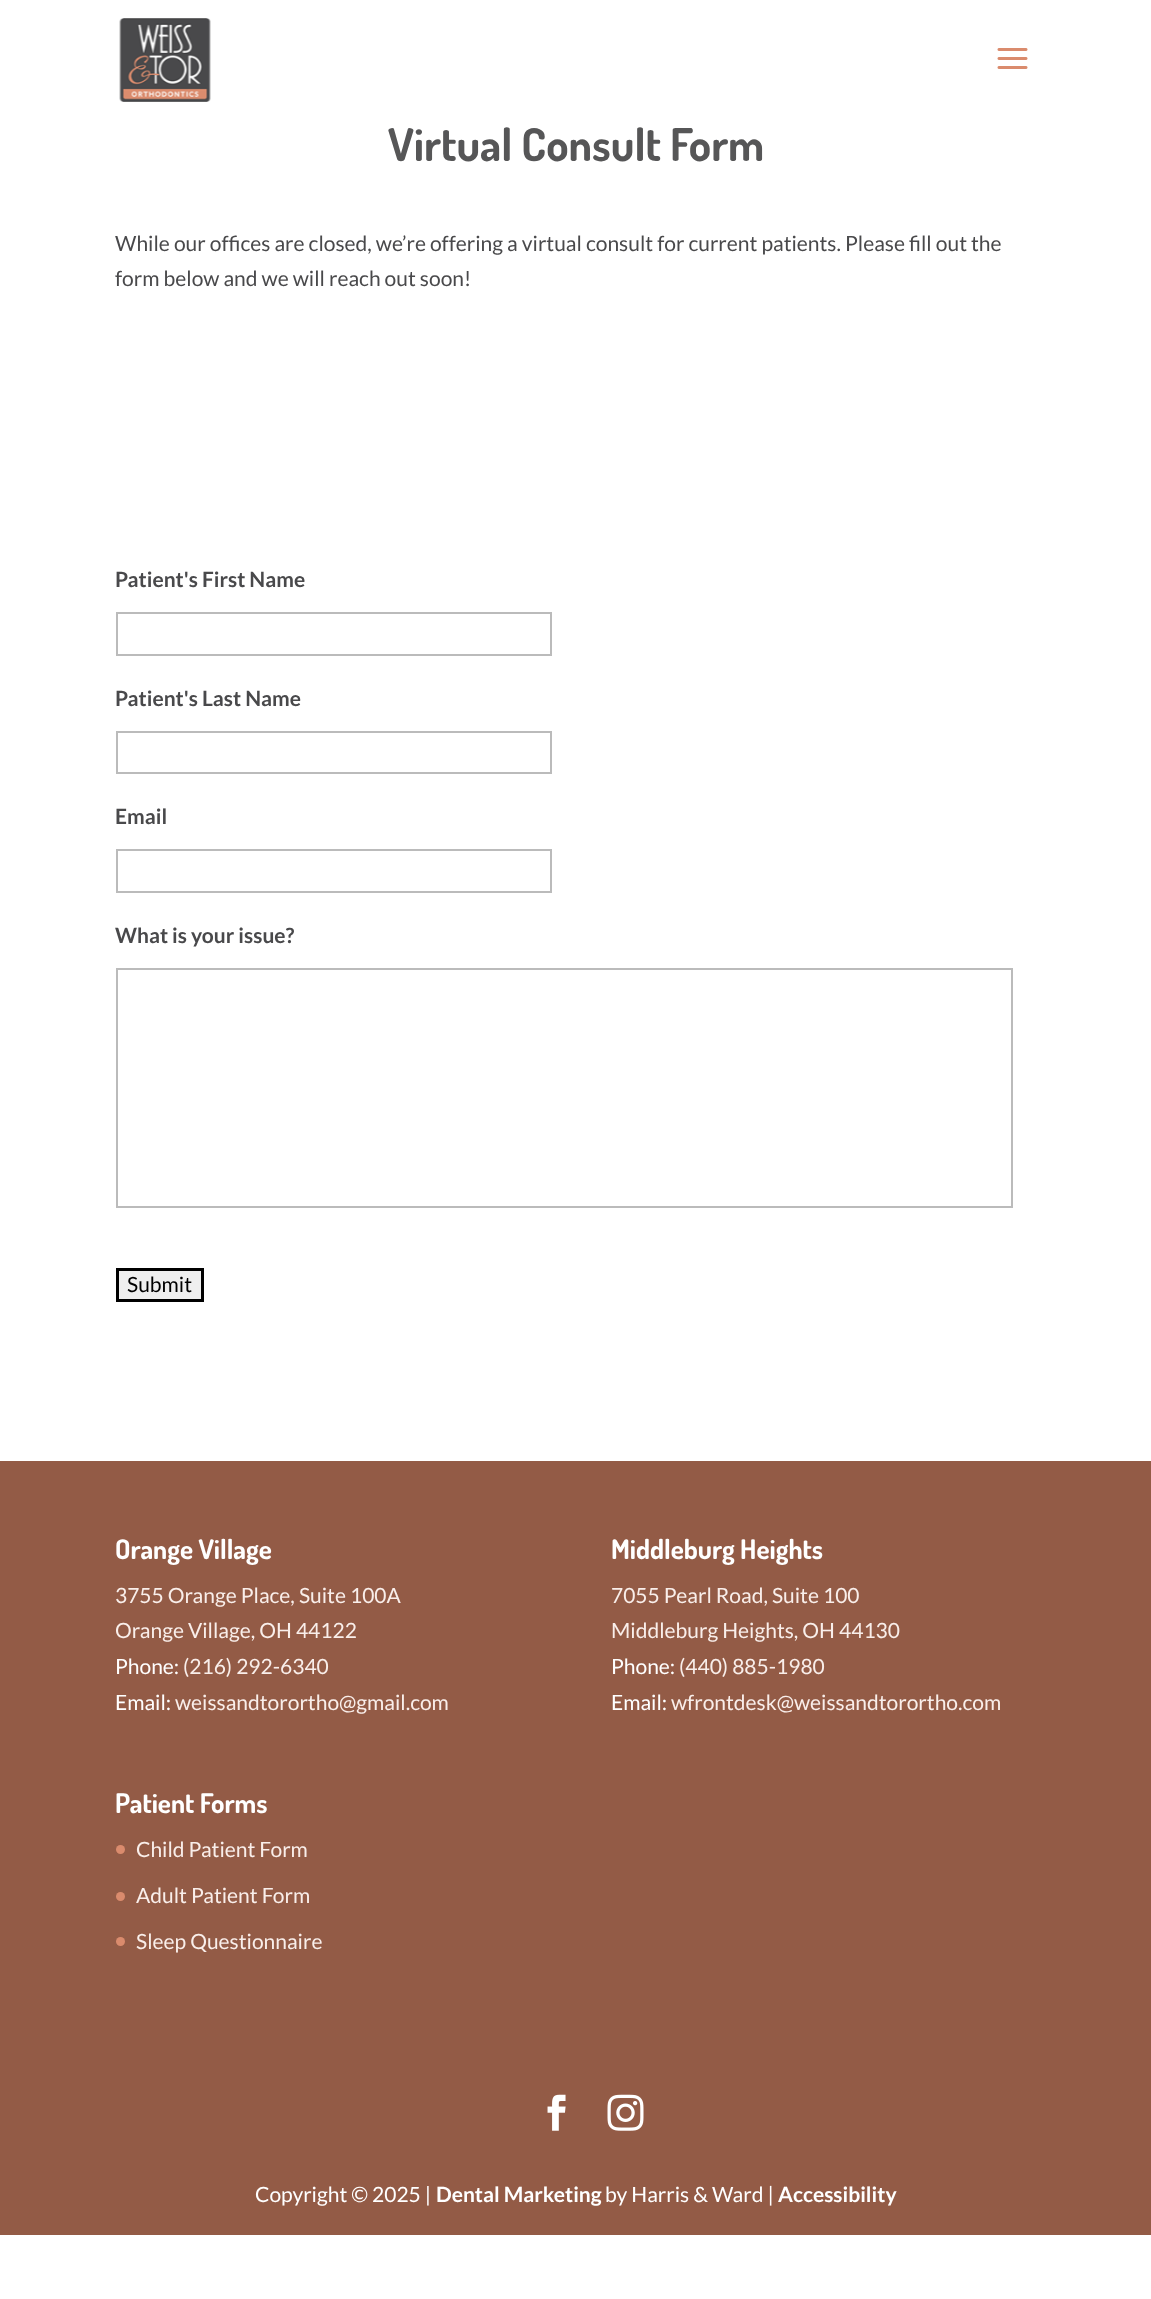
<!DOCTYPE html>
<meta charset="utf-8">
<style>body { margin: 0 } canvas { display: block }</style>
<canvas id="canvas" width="1151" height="2299"></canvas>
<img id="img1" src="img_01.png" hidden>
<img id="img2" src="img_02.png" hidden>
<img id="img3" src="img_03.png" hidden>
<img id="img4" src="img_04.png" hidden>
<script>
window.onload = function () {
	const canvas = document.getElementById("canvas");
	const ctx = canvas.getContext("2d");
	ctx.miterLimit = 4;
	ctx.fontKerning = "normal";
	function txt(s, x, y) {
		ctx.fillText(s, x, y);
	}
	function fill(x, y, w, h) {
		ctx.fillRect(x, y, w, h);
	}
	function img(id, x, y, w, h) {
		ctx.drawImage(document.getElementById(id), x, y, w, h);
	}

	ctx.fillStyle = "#FFFFFF";
	fill(0, 0, 1151, 2299);
	img("img1", 119, 18, 92, 84);
	img("img2", 997, 48, 31, 21);
	ctx.strokeStyle = "#BBBBBB";
	ctx.lineWidth = 2;
	ctx.strokeRect(117, 613, 434, 42);
	ctx.strokeRect(117, 732, 434, 41);
	ctx.strokeRect(117, 850, 434, 42);
	ctx.strokeRect(117, 969, 895, 238);
	ctx.fillStyle = "#EFEFEF";
	ctx.beginPath();
	ctx.rect(117.5, 1269.5, 85, 31);
	ctx.fill();
	ctx.strokeStyle = "#000000";
	ctx.lineWidth = 3;
	ctx.stroke();
	ctx.fillStyle = "#935B46";
	fill(0, 1461, 1151, 774);
	ctx.fillStyle = "#DA8B6D";
	ctx.beginPath();
	ctx.arc(120.5, 1849.5, 4.5, 0, Math.PI * 2);
	ctx.fill();
	ctx.beginPath();
	ctx.arc(120.5, 1896.5, 4.5, 0, Math.PI * 2);
	ctx.fill();
	ctx.beginPath();
	ctx.arc(120.5, 1941.5, 4.5, 0, Math.PI * 2);
	ctx.fill();
	img("img3", 547, 2094, 19, 37);
	img("img4", 607, 2094, 37, 37);
	ctx.font = "bold 45px Dosis";
	ctx.fillStyle = "#565657";
	txt("Virtual Consult Form", 388, 161);
	ctx.font = "21px Lato";
	ctx.fillStyle = "#49494B";
	txt("While our offices are closed, we’re offering a virtual consult for current patients. Please fill out the", 115, 251);
	txt("form below and we will reach out soon!", 115, 286);
	ctx.font = "bold 21px Lato";
	txt("Patient's First Name", 115, 587);
	txt("Patient's Last Name", 115, 706);
	txt("Email", 115, 824);
	txt("What is your issue?", 115, 943);
	ctx.font = "21px Lato";
	ctx.fillStyle = "#000000";
	txt("Submit", 127, 1292);
	ctx.font = "bold 27px Dosis";
	ctx.fillStyle = "#FFFFFF";
	txt("Orange Village", 115, 1559);
	ctx.font = "21px Lato";
	ctx.fillStyle = "#F9EEEA";
	txt("3755 Orange Place, Suite 100A", 115, 1603);
	txt("Orange Village, OH 44122", 115, 1638);
	ctx.fillStyle = "#FFFFFF";
	txt("Phone:", 115, 1674);
	ctx.fillStyle = "#F9EEEA";
	txt("(216) 292-6340", 183, 1674);
	ctx.fillStyle = "#FFFFFF";
	txt("Email:", 115, 1710);
	ctx.fillStyle = "#F9EEEA";
	txt("weissandtorortho@gmail.com", 175, 1710);
	ctx.font = "bold 27px Dosis";
	ctx.fillStyle = "#FFFFFF";
	txt("Middleburg Heights", 611, 1559);
	ctx.font = "21px Lato";
	ctx.fillStyle = "#F9EEEA";
	txt("7055 Pearl Road, Suite 100", 611, 1603);
	txt("Middleburg Heights, OH 44130", 611, 1638);
	ctx.fillStyle = "#FFFFFF";
	txt("Phone:", 611, 1674);
	ctx.fillStyle = "#F9EEEA";
	txt("(440) 885-1980", 679, 1674);
	ctx.fillStyle = "#FFFFFF";
	txt("Email:", 611, 1710);
	ctx.fillStyle = "#F9EEEA";
	txt("wfrontdesk@weissandtorortho.com", 671, 1710);
	ctx.font = "bold 27px Dosis";
	ctx.fillStyle = "#FFFFFF";
	txt("Patient Forms", 115, 1813);
	ctx.font = "21px Lato";
	ctx.fillStyle = "#F9EEEA";
	txt("Child Patient Form", 136, 1857);
	txt("Adult Patient Form", 136, 1903);
	txt("Sleep Questionnaire", 136, 1949);
	ctx.fillStyle = "#FFFFFF";
	txt("Copyright © 2025 |", 255, 2202);
	ctx.font = "bold 21px Lato";
	txt("Dental Marketing", 436, 2202);
	ctx.font = "21px Lato";
	txt("by Harris & Ward |", 605, 2202);
	ctx.font = "bold 21px Lato";
	txt("Accessibility", 778, 2202);
};
</script>
